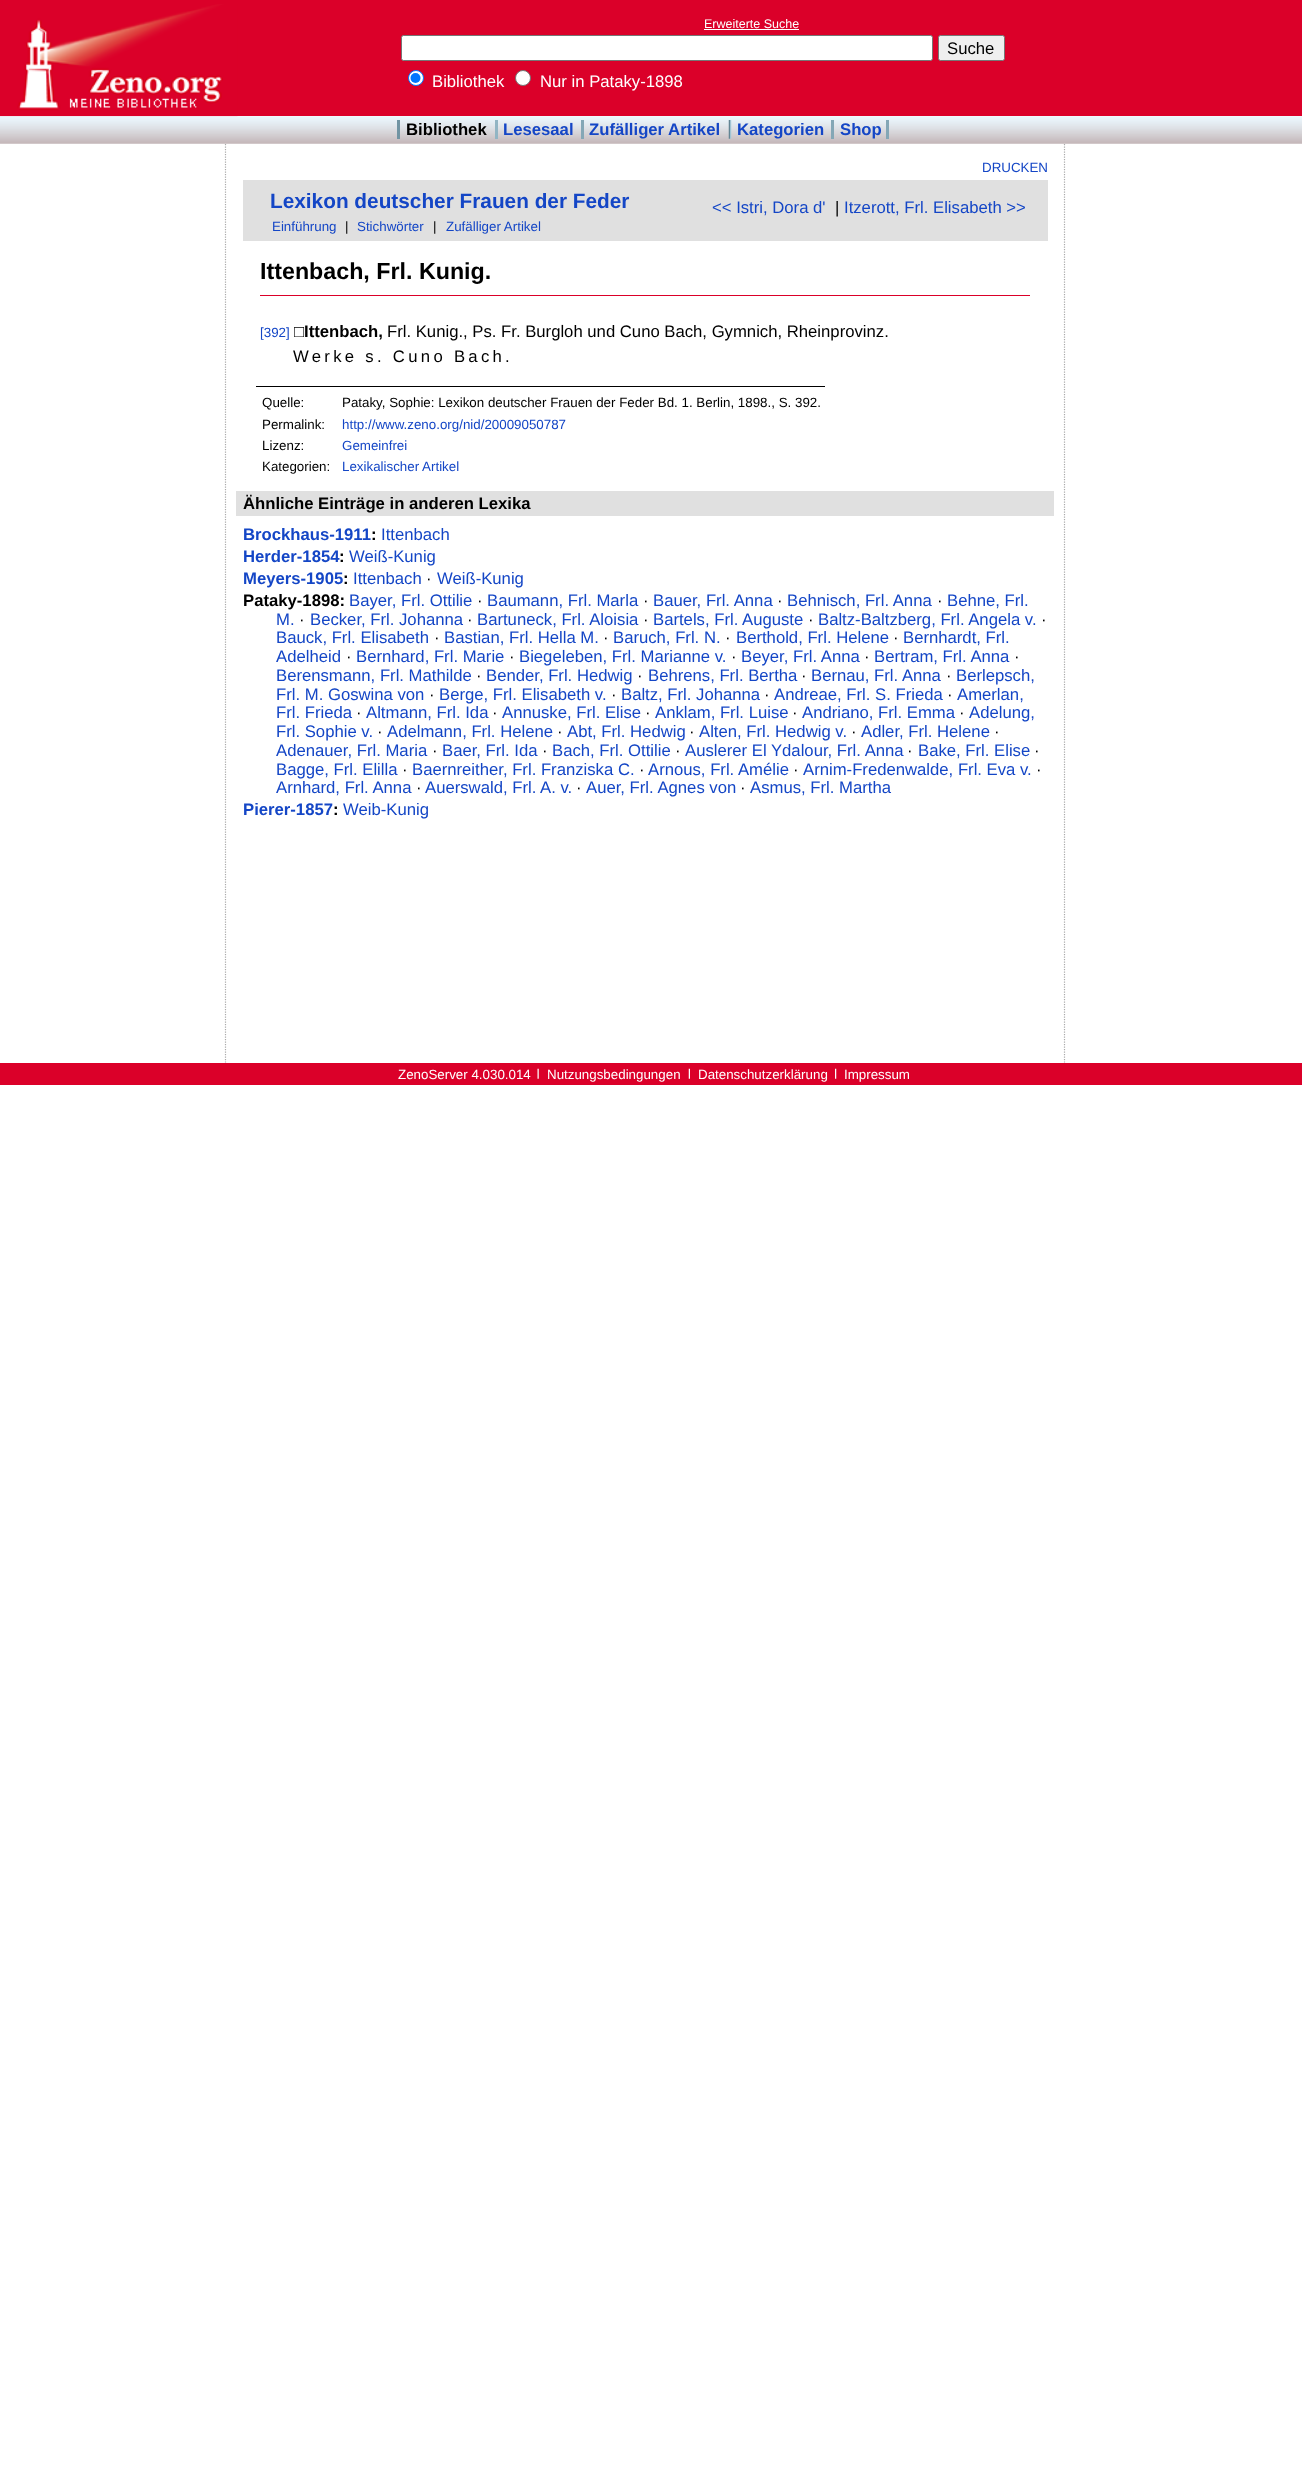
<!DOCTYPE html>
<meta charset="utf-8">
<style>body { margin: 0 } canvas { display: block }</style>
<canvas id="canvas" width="1302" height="2471"></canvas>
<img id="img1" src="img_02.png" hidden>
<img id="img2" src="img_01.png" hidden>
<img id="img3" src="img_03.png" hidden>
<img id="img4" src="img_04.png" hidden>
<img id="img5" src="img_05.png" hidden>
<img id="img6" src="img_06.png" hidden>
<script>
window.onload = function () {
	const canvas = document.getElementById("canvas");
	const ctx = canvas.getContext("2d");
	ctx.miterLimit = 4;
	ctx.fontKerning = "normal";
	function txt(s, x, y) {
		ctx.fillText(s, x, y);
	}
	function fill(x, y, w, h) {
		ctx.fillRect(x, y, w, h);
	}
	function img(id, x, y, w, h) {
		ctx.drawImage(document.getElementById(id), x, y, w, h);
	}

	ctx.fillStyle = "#FFFFFF";
	fill(0, 0, 1302, 2471);
	ctx.fillStyle = "#DB0029";
	fill(0, 0, 1302, 116);
	img("img1", 0, 116, 1302, 28);
	img("img2", 0, 4, 238, 113);
	ctx.fillStyle = "#FFFFFF";
	fill(704, 29, 95, 1);
	ctx.beginPath();
	ctx.roundRect(401.5, 35.5, 531, 25, 2);
	ctx.fill();
	ctx.strokeStyle = "#767676";
	ctx.stroke();
	ctx.fillStyle = "#EFEFEF";
	ctx.beginPath();
	ctx.roundRect(938.5, 35.5, 66, 25, 2);
	ctx.fill();
	ctx.stroke();
	ctx.fillStyle = "#FFFFFF";
	ctx.beginPath();
	ctx.arc(416, 78, 7.5, 0, Math.PI * 2);
	ctx.fill();
	ctx.strokeStyle = "#0075FF";
	ctx.stroke();
	ctx.fillStyle = "#0075FF";
	ctx.beginPath();
	ctx.arc(415.5, 78, 5, 0, Math.PI * 2);
	ctx.fill();
	ctx.fillStyle = "#FFFFFF";
	ctx.beginPath();
	ctx.arc(523, 78, 7.5, 0, Math.PI * 2);
	ctx.fill();
	ctx.strokeStyle = "#767676";
	ctx.stroke();
	ctx.fillStyle = "#7194A3";
	fill(397, 120, 3, 19);
	ctx.fillStyle = "#92B5C4";
	fill(495, 120, 3, 19);
	ctx.fillStyle = "#84A7B6";
	fill(581, 120, 3, 19);
	img("img3", 728, 120, 4, 19);
	fill(886, 120, 3, 19);
	fill(831, 120, 3, 19);
	ctx.beginPath();
	ctx.moveTo(1064.5, 144);
	ctx.lineTo(1064.5, 1062.5);
	ctx.strokeStyle = "#AAAAAA";
	ctx.lineWidth = 1.2;
	ctx.setLineDash([1.25, 1.25]);
	ctx.stroke();
	ctx.beginPath();
	ctx.moveTo(225.5, 144);
	ctx.lineTo(225.5, 1062.5);
	ctx.stroke();
	ctx.fillStyle = "#E0E0E0";
	fill(243, 180, 805, 61);
	ctx.fillStyle = "#DB0029";
	fill(260, 295, 770, 1);
	ctx.fillStyle = "#000000";
	fill(256, 386, 569, 1);
	ctx.fillStyle = "#E0E0E0";
	fill(236, 491, 818, 25);
	ctx.fillStyle = "#DB0029";
	fill(0, 1063, 1302, 22);
	img("img4", 537, 1068, 2, 11);
	img("img5", 688, 1068, 2, 11);
	img("img6", 835, 1068, 2, 11);
	ctx.font = "12.5px Liberation Sans";
	ctx.fillStyle = "#FFFFFF";
	txt("Erweiterte Suche", 704, 28);
	ctx.font = "16.7px Liberation Sans";
	ctx.fillStyle = "#000000";
	txt("Suche", 947, 54);
	ctx.fillStyle = "#FFFFFF";
	txt("Bibliothek", 432, 87);
	txt("Nur in Pataky-1898", 540, 87);
	ctx.font = "bold 16.7px Liberation Sans";
	ctx.fillStyle = "#000000";
	txt("Bibliothek", 406, 135);
	ctx.fillStyle = "#1446C6";
	txt("Lesesaal", 503, 135);
	txt("Zufälliger Artikel", 589, 135);
	txt("Kategorien", 737, 135);
	txt("Shop", 840, 135);
	ctx.font = "13.35px Liberation Sans";
	txt("DRUCKEN", 982, 172);
	ctx.font = "bold 20.8px Liberation Sans";
	txt("Lexikon deutscher Frauen der Feder", 270, 208);
	ctx.font = "16.7px Liberation Sans";
	txt("<< Istri, Dora d'", 712, 213);
	ctx.fillStyle = "#000000";
	txt("|", 835, 213);
	ctx.fillStyle = "#1446C6";
	txt("Itzerott, Frl. Elisabeth >>", 844, 213);
	ctx.font = "13.35px Liberation Sans";
	txt("Einführung", 272, 231);
	ctx.fillStyle = "#000000";
	txt("|", 345, 231);
	ctx.fillStyle = "#1446C6";
	txt("Stichwörter", 357, 231);
	ctx.fillStyle = "#000000";
	txt("|", 433, 231);
	ctx.fillStyle = "#1446C6";
	txt("Zufälliger Artikel", 446, 231);
	ctx.font = "bold 23.25px Liberation Sans";
	ctx.fillStyle = "#000000";
	txt("Ittenbach, Frl. Kunig.", 260, 279);
	ctx.font = "13.35px Liberation Sans";
	ctx.fillStyle = "#1446C6";
	txt("[392]", 260, 337);
	ctx.font = "bold 16.7px Liberation Sans";
	ctx.fillStyle = "#000000";
	txt("□Ittenbach,", 294, 337);
	ctx.font = "16.7px Liberation Sans";
	txt("Frl. Kunig., Ps. Fr. Burgloh und Cuno Bach, Gymnich, Rheinprovinz.", 387, 337);
	ctx.letterSpacing = "3.3px";
	txt("Werke s. Cuno Bach", 293, 362);
	ctx.letterSpacing = "0px";
	txt(".", 505, 362);
	ctx.font = "13.35px Liberation Sans";
	txt("Quelle:", 262, 407);
	txt("Pataky, Sophie: Lexikon deutscher Frauen der Feder Bd. 1. Berlin, 1898., S. 392.", 342, 407);
	txt("Permalink:", 262, 429);
	ctx.fillStyle = "#1446C6";
	txt("http://www.zeno.org/nid/20009050787", 342, 429);
	ctx.fillStyle = "#000000";
	txt("Lizenz:", 262, 450);
	ctx.fillStyle = "#1446C6";
	txt("Gemeinfrei", 342, 450);
	ctx.fillStyle = "#000000";
	txt("Kategorien:", 262, 471);
	ctx.fillStyle = "#1446C6";
	txt("Lexikalischer Artikel", 342, 471);
	ctx.font = "bold 16.7px Liberation Sans";
	ctx.fillStyle = "#000000";
	txt("Ähnliche Einträge in anderen Lexika", 243, 509);
	ctx.fillStyle = "#1446C6";
	txt("Brockhaus-1911", 243, 540);
	ctx.fillStyle = "#000000";
	txt(":", 371, 540);
	ctx.font = "16.7px Liberation Sans";
	ctx.fillStyle = "#1446C6";
	txt("Ittenbach", 381, 540);
	ctx.font = "bold 16.7px Liberation Sans";
	txt("Herder-1854", 243, 562);
	ctx.fillStyle = "#000000";
	txt(":", 339, 562);
	ctx.font = "16.7px Liberation Sans";
	ctx.fillStyle = "#1446C6";
	txt("Weiß-Kunig", 349, 562);
	ctx.font = "bold 16.7px Liberation Sans";
	txt("Meyers-1905", 243, 584);
	ctx.fillStyle = "#000000";
	txt(":", 343, 584);
	ctx.font = "16.7px Liberation Sans";
	ctx.fillStyle = "#1446C6";
	txt("Ittenbach", 353, 584);
	ctx.fillStyle = "#000000";
	txt("·", 426, 584);
	ctx.fillStyle = "#1446C6";
	txt("Weiß-Kunig", 437, 584);
	ctx.font = "bold 16.7px Liberation Sans";
	ctx.fillStyle = "#000000";
	txt("Pataky-1898:", 243, 606);
	ctx.font = "16.7px Liberation Sans";
	ctx.fillStyle = "#1446C6";
	txt("Bayer, Frl. Ottilie", 349, 606);
	ctx.fillStyle = "#000000";
	txt("·", 477, 606);
	ctx.fillStyle = "#1446C6";
	txt("Baumann, Frl. Marla", 487, 606);
	ctx.fillStyle = "#000000";
	txt("·", 643, 606);
	ctx.fillStyle = "#1446C6";
	txt("Bauer, Frl. Anna", 653, 606);
	ctx.fillStyle = "#000000";
	txt("·", 777, 606);
	ctx.fillStyle = "#1446C6";
	txt("Behnisch, Frl. Anna", 787, 606);
	ctx.fillStyle = "#000000";
	txt("·", 937, 606);
	ctx.fillStyle = "#1446C6";
	txt("Behne, Frl.", 947, 606);
	txt("M.", 276, 625);
	ctx.fillStyle = "#000000";
	txt("·", 299, 625);
	ctx.fillStyle = "#1446C6";
	txt("Becker, Frl. Johanna", 310, 625);
	ctx.fillStyle = "#000000";
	txt("·", 467, 625);
	ctx.fillStyle = "#1446C6";
	txt("Bartuneck, Frl. Aloisia", 477, 625);
	ctx.fillStyle = "#000000";
	txt("·", 643, 625);
	ctx.fillStyle = "#1446C6";
	txt("Bartels, Frl. Auguste", 653, 625);
	ctx.fillStyle = "#000000";
	txt("·", 808, 625);
	ctx.fillStyle = "#1446C6";
	txt("Baltz-Baltzberg, Frl. Angela v.", 818, 625);
	ctx.fillStyle = "#000000";
	txt("·", 1041, 625);
	ctx.fillStyle = "#1446C6";
	txt("Bauck, Frl. Elisabeth", 276, 643);
	ctx.fillStyle = "#000000";
	txt("·", 434, 643);
	ctx.fillStyle = "#1446C6";
	txt("Bastian, Frl. Hella M.", 444, 643);
	ctx.fillStyle = "#000000";
	txt("·", 603, 643);
	ctx.fillStyle = "#1446C6";
	txt("Baruch, Frl. N.", 613, 643);
	ctx.fillStyle = "#000000";
	txt("·", 725, 643);
	ctx.fillStyle = "#1446C6";
	txt("Berthold, Frl. Helene", 736, 643);
	ctx.fillStyle = "#000000";
	txt("·", 893, 643);
	ctx.fillStyle = "#1446C6";
	txt("Bernhardt, Frl.", 903, 643);
	txt("Adelheid", 276, 662);
	ctx.fillStyle = "#000000";
	txt("·", 346, 662);
	ctx.fillStyle = "#1446C6";
	txt("Bernhard, Frl. Marie", 356, 662);
	ctx.fillStyle = "#000000";
	txt("·", 509, 662);
	ctx.fillStyle = "#1446C6";
	txt("Biegeleben, Frl. Marianne v.", 519, 662);
	ctx.fillStyle = "#000000";
	txt("·", 731, 662);
	ctx.fillStyle = "#1446C6";
	txt("Beyer, Frl. Anna", 741, 662);
	ctx.fillStyle = "#000000";
	txt("·", 864, 662);
	ctx.fillStyle = "#1446C6";
	txt("Bertram, Frl. Anna", 874, 662);
	ctx.fillStyle = "#000000";
	txt("·", 1014, 662);
	ctx.fillStyle = "#1446C6";
	txt("Berensmann, Frl. Mathilde", 276, 681);
	ctx.fillStyle = "#000000";
	txt("·", 476, 681);
	ctx.fillStyle = "#1446C6";
	txt("Bender, Frl. Hedwig", 486, 681);
	ctx.fillStyle = "#000000";
	txt("·", 637, 681);
	ctx.fillStyle = "#1446C6";
	txt("Behrens, Frl. Bertha", 648, 681);
	ctx.fillStyle = "#000000";
	txt("·", 801, 681);
	ctx.fillStyle = "#1446C6";
	txt("Bernau, Frl. Anna", 811, 681);
	ctx.fillStyle = "#000000";
	txt("·", 946, 681);
	ctx.fillStyle = "#1446C6";
	txt("Berlepsch,", 956, 681);
	txt("Frl. M. Goswina von", 276, 700);
	ctx.fillStyle = "#000000";
	txt("·", 429, 700);
	ctx.fillStyle = "#1446C6";
	txt("Berge, Frl. Elisabeth v.", 439, 700);
	ctx.fillStyle = "#000000";
	txt("·", 611, 700);
	ctx.fillStyle = "#1446C6";
	txt("Baltz, Frl. Johanna", 621, 700);
	ctx.fillStyle = "#000000";
	txt("·", 764, 700);
	ctx.fillStyle = "#1446C6";
	txt("Andreae, Frl. S. Frieda", 774, 700);
	ctx.fillStyle = "#000000";
	txt("·", 947, 700);
	ctx.fillStyle = "#1446C6";
	txt("Amerlan,", 957, 700);
	txt("Frl. Frieda", 276, 718);
	ctx.fillStyle = "#000000";
	txt("·", 356, 718);
	ctx.fillStyle = "#1446C6";
	txt("Altmann, Frl. Ida", 366, 718);
	ctx.fillStyle = "#000000";
	txt("·", 492, 718);
	ctx.fillStyle = "#1446C6";
	txt("Annuske, Frl. Elise", 502, 718);
	ctx.fillStyle = "#000000";
	txt("·", 645, 718);
	ctx.fillStyle = "#1446C6";
	txt("Anklam, Frl. Luise", 655, 718);
	ctx.fillStyle = "#000000";
	txt("·", 792, 718);
	ctx.fillStyle = "#1446C6";
	txt("Andriano, Frl. Emma", 802, 718);
	ctx.fillStyle = "#000000";
	txt("·", 959, 718);
	ctx.fillStyle = "#1446C6";
	txt("Adelung,", 969, 718);
	txt("Frl. Sophie v.", 276, 737);
	ctx.fillStyle = "#000000";
	txt("·", 377, 737);
	ctx.fillStyle = "#1446C6";
	txt("Adelmann, Frl. Helene", 387, 737);
	ctx.fillStyle = "#000000";
	txt("·", 557, 737);
	ctx.fillStyle = "#1446C6";
	txt("Abt, Frl. Hedwig", 567, 737);
	ctx.fillStyle = "#000000";
	txt("·", 689, 737);
	ctx.fillStyle = "#1446C6";
	txt("Alten, Frl. Hedwig v.", 699, 737);
	ctx.fillStyle = "#000000";
	txt("·", 851, 737);
	ctx.fillStyle = "#1446C6";
	txt("Adler, Frl. Helene", 861, 737);
	ctx.fillStyle = "#000000";
	txt("·", 994, 737);
	ctx.fillStyle = "#1446C6";
	txt("Adenauer, Frl. Maria", 276, 756);
	ctx.fillStyle = "#000000";
	txt("·", 432, 756);
	ctx.fillStyle = "#1446C6";
	txt("Baer, Frl. Ida", 442, 756);
	ctx.fillStyle = "#000000";
	txt("·", 542, 756);
	ctx.fillStyle = "#1446C6";
	txt("Bach, Frl. Ottilie", 552, 756);
	ctx.fillStyle = "#000000";
	txt("·", 675, 756);
	ctx.fillStyle = "#1446C6";
	txt("Auslerer El Ydalour, Frl. Anna", 685, 756);
	ctx.fillStyle = "#000000";
	txt("·", 907, 756);
	ctx.fillStyle = "#1446C6";
	txt("Bake, Frl. Elise", 918, 756);
	ctx.fillStyle = "#000000";
	txt("·", 1034, 756);
	ctx.fillStyle = "#1446C6";
	txt("Bagge, Frl. Elilla", 276, 775);
	ctx.fillStyle = "#000000";
	txt("·", 402, 775);
	ctx.fillStyle = "#1446C6";
	txt("Baernreither, Frl. Franziska C.", 412, 775);
	ctx.fillStyle = "#000000";
	txt("·", 639, 775);
	ctx.fillStyle = "#1446C6";
	txt("Arnous, Frl. Amélie", 648, 775);
	ctx.fillStyle = "#000000";
	txt("·", 793, 775);
	ctx.fillStyle = "#1446C6";
	txt("Arnim-Fredenwalde, Frl. Eva v.", 803, 775);
	ctx.fillStyle = "#000000";
	txt("·", 1036, 775);
	ctx.fillStyle = "#1446C6";
	txt("Arnhard, Frl. Anna", 276, 793);
	ctx.fillStyle = "#000000";
	txt("·", 416, 793);
	ctx.fillStyle = "#1446C6";
	txt("Auerswald, Frl. A. v.", 425, 793);
	ctx.fillStyle = "#000000";
	txt("·", 576, 793);
	ctx.fillStyle = "#1446C6";
	txt("Auer, Frl. Agnes von", 586, 793);
	ctx.fillStyle = "#000000";
	txt("·", 740, 793);
	ctx.fillStyle = "#1446C6";
	txt("Asmus, Frl. Martha", 750, 793);
	ctx.font = "bold 16.7px Liberation Sans";
	txt("Pierer-1857", 243, 815);
	ctx.fillStyle = "#000000";
	txt(":", 333, 815);
	ctx.font = "16.7px Liberation Sans";
	ctx.fillStyle = "#1446C6";
	txt("Weib-Kunig", 343, 815);
	ctx.font = "13.35px Liberation Sans";
	ctx.fillStyle = "#FFFFFF";
	txt("ZenoServer 4.030.014", 398, 1079);
	txt("Nutzungsbedingungen", 547, 1079);
	txt("Datenschutzerklärung", 698, 1079);
	txt("Impressum", 844, 1079);
};
</script>
